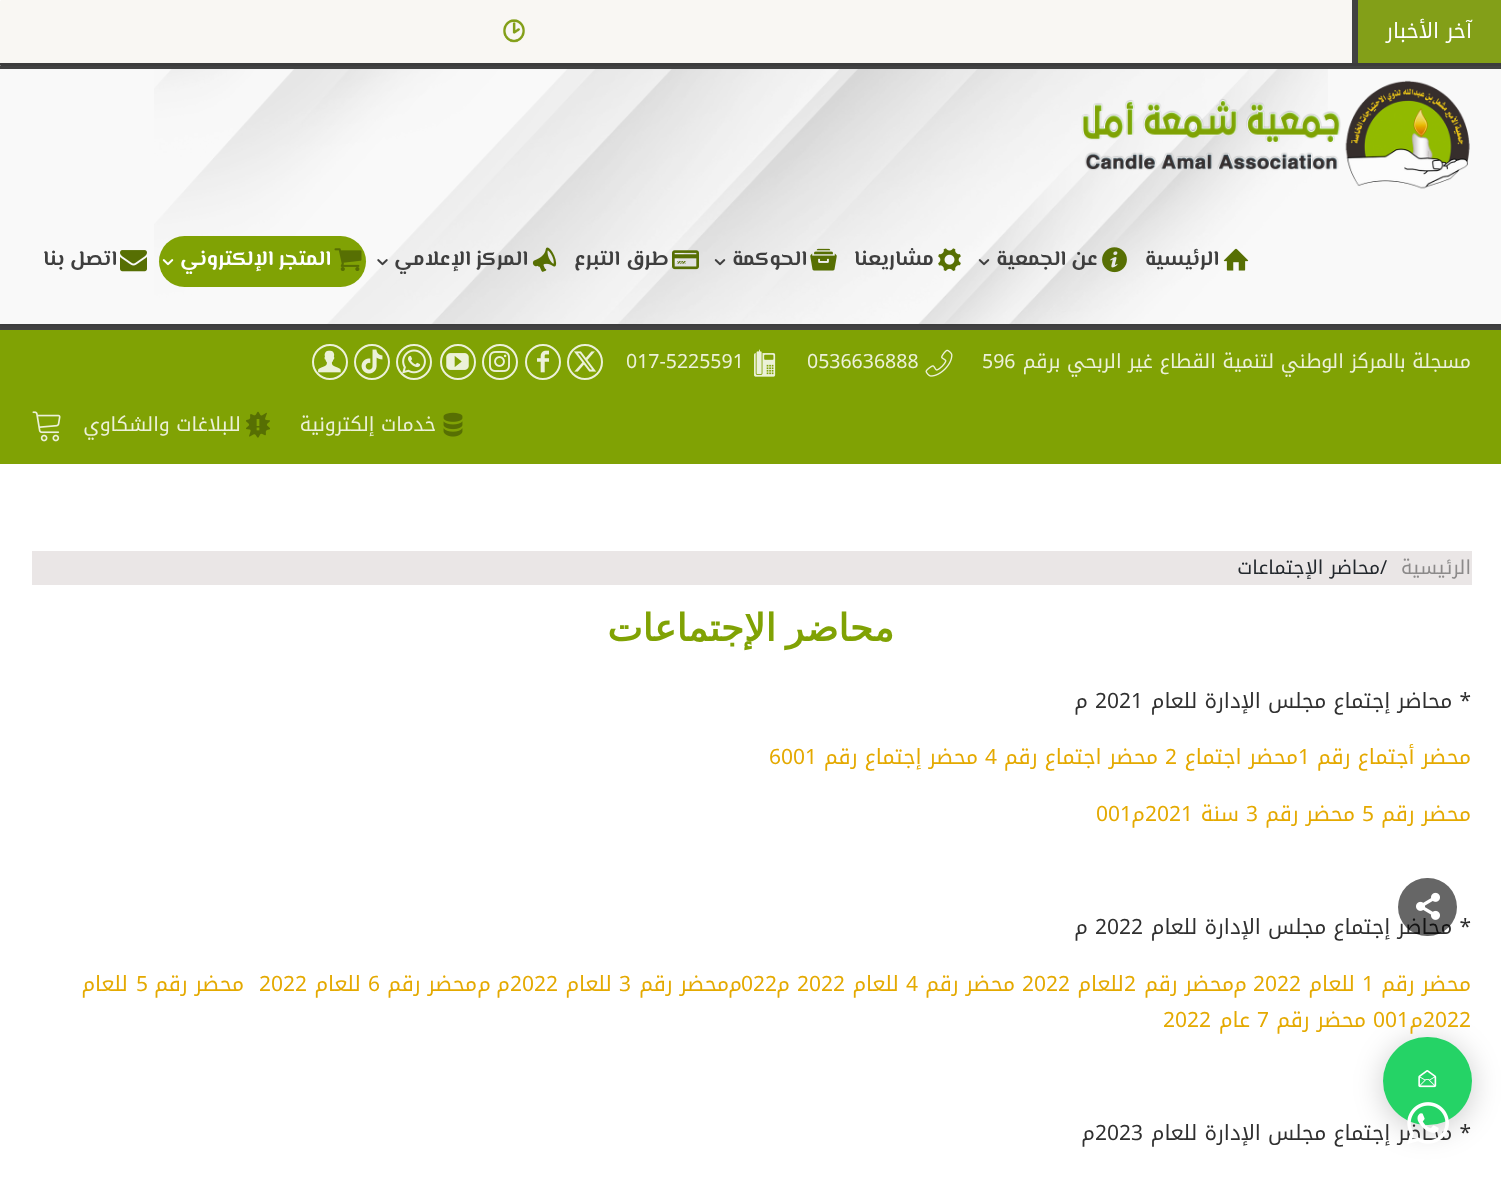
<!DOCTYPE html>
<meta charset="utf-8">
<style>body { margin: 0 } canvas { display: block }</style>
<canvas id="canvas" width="1501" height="1184"></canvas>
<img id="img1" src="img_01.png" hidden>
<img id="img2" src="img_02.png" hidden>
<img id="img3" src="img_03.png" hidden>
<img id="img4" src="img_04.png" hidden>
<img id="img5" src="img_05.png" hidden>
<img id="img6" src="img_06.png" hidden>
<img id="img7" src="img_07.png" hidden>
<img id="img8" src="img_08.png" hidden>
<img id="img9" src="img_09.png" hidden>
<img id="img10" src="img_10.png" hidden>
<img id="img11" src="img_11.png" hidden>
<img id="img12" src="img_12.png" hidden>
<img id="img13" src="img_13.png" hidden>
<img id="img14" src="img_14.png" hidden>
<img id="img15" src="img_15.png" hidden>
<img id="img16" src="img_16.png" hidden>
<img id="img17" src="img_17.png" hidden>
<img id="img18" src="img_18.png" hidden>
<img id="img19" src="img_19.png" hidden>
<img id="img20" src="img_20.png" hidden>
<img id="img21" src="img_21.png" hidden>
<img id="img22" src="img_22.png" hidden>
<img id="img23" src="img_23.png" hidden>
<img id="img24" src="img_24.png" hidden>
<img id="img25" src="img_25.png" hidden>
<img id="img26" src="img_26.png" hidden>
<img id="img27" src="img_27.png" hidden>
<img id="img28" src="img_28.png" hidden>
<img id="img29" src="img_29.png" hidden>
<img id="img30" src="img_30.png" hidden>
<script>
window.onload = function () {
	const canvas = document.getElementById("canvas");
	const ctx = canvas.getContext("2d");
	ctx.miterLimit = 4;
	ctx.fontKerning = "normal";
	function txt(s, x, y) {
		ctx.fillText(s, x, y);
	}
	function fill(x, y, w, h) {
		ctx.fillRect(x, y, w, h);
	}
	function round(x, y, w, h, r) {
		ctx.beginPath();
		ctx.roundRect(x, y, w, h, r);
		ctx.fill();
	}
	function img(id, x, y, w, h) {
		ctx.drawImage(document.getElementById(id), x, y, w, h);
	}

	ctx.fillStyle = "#FFFFFF";
	fill(0, 0, 1501, 1184);
	ctx.fillStyle = "#80A204";
	fill(0, 330, 1501, 134);
	ctx.fillStyle = "#424242";
	fill(0, 324, 1501, 6);
	ctx.fillStyle = "rgba(0, 0, 0, 0.22)";
	ctx.filter = "blur(2px)";
	ctx.beginPath();
	ctx.rect(0, 66, 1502, 258);
	ctx.fill();
	ctx.filter = "none";
	ctx.fillStyle = "#F9F7F3";
	round(0, 0, 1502, 66, 1.5);
	ctx.fillStyle = "#839F18";
	fill(1358, 0, 143, 66);
	ctx.fillStyle = "#424242";
	fill(1352, 0, 6, 66);
	ctx.fillStyle = "#3C3C3C";
	ctx.beginPath();
	ctx.moveTo(0, 63);
	ctx.lineTo(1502, 63);
	ctx.lineTo(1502, 64.5);
	ctx.bezierCurveTo(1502, 65.5, 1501.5, 66, 1500.5, 66);
	ctx.lineTo(1.5, 66);
	ctx.bezierCurveTo(0.5, 66, 0, 65.5, 0, 64.5);
	ctx.closePath();
	ctx.fill();
	img("img1", 503, 19, 22, 24);
	ctx.fillStyle = "#F9F9F9";
	fill(0, 69, 1501, 255);
	img("img2", 154, 69, 1174, 255);
	ctx.fillStyle = "#424242";
	fill(0, 66, 1501, 3);
	img("img3", 1081, 80, 389, 109);
	img("img4", 1223, 248, 26, 23);
	img("img5", 1102, 247, 25, 26);
	img("img6", 978, 259, 12, 7);
	img("img7", 938, 248, 23, 23);
	img("img8", 810, 248, 27, 23);
	img("img9", 714, 259, 12, 7);
	img("img10", 672, 250, 27, 20);
	img("img11", 532, 247, 25, 25);
	img("img12", 377, 259, 11, 7);
	ctx.fillStyle = "#80A204";
	round(159, 236, 207, 51, 25.5);
	img("img13", 334, 248, 28, 23);
	img("img14", 162, 259, 12, 7);
	img("img15", 120, 250, 27, 22);
	img("img16", 925, 349, 28, 28);
	img("img17", 754, 349, 22, 28);
	ctx.beginPath();
	ctx.arc(585, 362, 17, 0, Math.PI * 2);
	ctx.strokeStyle = "#ECF1D9";
	ctx.lineWidth = 2;
	ctx.stroke();
	img("img18", 574, 351, 23, 21);
	ctx.beginPath();
	ctx.arc(543, 362, 17, 0, Math.PI * 2);
	ctx.stroke();
	img("img19", 537, 350, 12, 23);
	ctx.beginPath();
	ctx.arc(500, 362, 17, 0, Math.PI * 2);
	ctx.stroke();
	img("img20", 489, 351, 21, 21);
	ctx.beginPath();
	ctx.arc(458, 362, 17, 0, Math.PI * 2);
	ctx.stroke();
	img("img21", 446, 353, 23, 17);
	ctx.beginPath();
	ctx.arc(414, 362, 17, 0, Math.PI * 2);
	ctx.stroke();
	img("img22", 402, 349, 24, 25);
	ctx.beginPath();
	ctx.arc(372, 362, 17, 0, Math.PI * 2);
	ctx.stroke();
	img("img23", 361, 349, 22, 25);
	ctx.beginPath();
	ctx.arc(330, 362, 17, 0, Math.PI * 2);
	ctx.stroke();
	img("img24", 318, 350, 23, 23);
	img("img25", 443, 412, 20, 25);
	img("img26", 246, 411, 24, 27);
	img("img27", 32, 411, 29, 31);
	ctx.fillStyle = "#EAE6E6";
	fill(32, 551, 1440, 34);
	ctx.fillStyle = "rgba(0, 0, 0, 0.2)";
	ctx.filter = "blur(15px)";
	ctx.beginPath();
	ctx.roundRect(1383, 1041, 89, 89, 44.5);
	ctx.fill();
	ctx.filter = "none";
	ctx.direction = "rtl";
	ctx.font = "21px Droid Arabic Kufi";
	ctx.fillStyle = "#FFFFFF";
	txt("آخر الأخبار", 1472, 38);
	ctx.font = "bold 21px El Messiri";
	ctx.fillStyle = "#3F3F3F";
	txt("الرئيسية", 1219, 265);
	txt("عن الجمعية", 1098, 265);
	txt("مشاريعنا", 934, 265);
	txt("الحوكمة", 807, 265);
	txt("طرق التبرع", 669, 265);
	txt("المركز الإعلامي", 528, 265);
	ctx.fillStyle = "#FFFFFF";
	txt("المتجر الإلكتروني", 331, 265);
	ctx.fillStyle = "#3F3F3F";
	txt("اتصل بنا", 117, 265);
	ctx.font = "19.5px Noto Kufi Arabic";
	ctx.fillStyle = "#ECF1D9";
	txt("مسجلة بالمركز الوطني لتنمية القطاع غير الربحي برقم", 1471, 368);
	ctx.direction = "ltr";
	txt("596", 982, 368);
	txt("0536636888", 807, 368);
	txt("017-5225591", 626, 368);
	ctx.direction = "rtl";
	txt("خدمات إلكترونية", 436, 431);
	txt("للبلاغات والشكاوي", 241, 431);
	ctx.font = "19.25px Noto Kufi Arabic";
	ctx.fillStyle = "#8C8A8A";
	txt("الرئيسية", 1471, 574);
	ctx.direction = "ltr";
	ctx.fillStyle = "#23282D";
	txt("/", 1380, 574);
	ctx.direction = "rtl";
	txt("محاضر الإجتماعات", 1380, 574);
	ctx.wordSpacing = "-2px";
	ctx.font = "bold 37.5px DejaVu Sans";
	ctx.fillStyle = "#80A204";
	txt("محاضر الإجتماعات", 894, 641);
	ctx.wordSpacing = "0px";
	ctx.font = "21px Noto Kufi Arabic";
	ctx.fillStyle = "#303030";
	txt("* محاضر إجتماع مجلس الإدارة للعام", 1471, 708);
	ctx.direction = "ltr";
	txt("2021", 1095, 708);
	ctx.direction = "rtl";
	txt("م", 1088, 708);
	ctx.fillStyle = "#E4A900";
	txt("محضر أجتماع رقم", 1471, 764);
	ctx.direction = "ltr";
	txt("1", 1298, 764);
	ctx.direction = "rtl";
	txt("محضر اجتماع", 1298, 764);
	ctx.direction = "ltr";
	txt("2", 1165, 764);
	ctx.direction = "rtl";
	txt("محضر اجتماع رقم", 1158, 764);
	ctx.direction = "ltr";
	txt("4", 985, 764);
	ctx.direction = "rtl";
	txt("محضر إجتماع رقم", 978, 764);
	ctx.direction = "ltr";
	txt("6001", 769, 764);
	ctx.direction = "rtl";
	txt("محضر رقم", 1471, 821);
	ctx.direction = "ltr";
	txt("5", 1362, 821);
	ctx.direction = "rtl";
	txt("محضر رقم", 1355, 821);
	ctx.direction = "ltr";
	txt("3", 1246, 821);
	ctx.direction = "rtl";
	txt("سنة", 1239, 821);
	ctx.direction = "ltr";
	txt("2021", 1145, 821);
	ctx.direction = "rtl";
	txt("م", 1145, 821);
	ctx.direction = "ltr";
	txt("001", 1096, 821);
	ctx.direction = "rtl";
	ctx.fillStyle = "#303030";
	txt("* محاضر إجتماع مجلس الإدارة للعام", 1471, 934);
	ctx.direction = "ltr";
	txt("2022", 1095, 934);
	ctx.direction = "rtl";
	txt("م", 1088, 934);
	ctx.fillStyle = "#E4A900";
	txt("محضر رقم", 1471, 991);
	ctx.direction = "ltr";
	txt("1", 1362, 991);
	ctx.direction = "rtl";
	txt("للعام", 1355, 991);
	ctx.direction = "ltr";
	txt("2022", 1253, 991);
	ctx.direction = "rtl";
	txt("م", 1247, 991);
	txt("محضر رقم", 1234, 991);
	ctx.direction = "ltr";
	txt("2", 1124, 991);
	ctx.direction = "rtl";
	txt("للعام", 1124, 991);
	ctx.direction = "ltr";
	txt("2022", 1022, 991);
	ctx.direction = "rtl";
	txt("محضر رقم", 1015, 991);
	ctx.direction = "ltr";
	txt("4", 906, 991);
	ctx.direction = "rtl";
	txt("للعام", 899, 991);
	ctx.direction = "ltr";
	txt("2022", 797, 991);
	ctx.direction = "rtl";
	txt("م", 790, 991);
	ctx.direction = "ltr";
	txt("022", 741, 991);
	ctx.direction = "rtl";
	txt("م", 742, 991);
	txt("محضر رقم", 729, 991);
	ctx.direction = "ltr";
	txt("3", 619, 991);
	ctx.direction = "rtl";
	txt("للعام", 612, 991);
	ctx.direction = "ltr";
	txt("2022", 510, 991);
	ctx.direction = "rtl";
	txt("م", 510, 991);
	txt("م", 491, 991);
	txt("محضر رقم", 477, 991);
	ctx.direction = "ltr";
	txt("6", 368, 991);
	ctx.direction = "rtl";
	txt("للعام", 361, 991);
	ctx.direction = "ltr";
	txt("2022", 259, 991);
	ctx.direction = "rtl";
	txt("محضر رقم", 244, 991);
	ctx.direction = "ltr";
	txt("5", 136, 991);
	ctx.direction = "rtl";
	txt("للعام", 128, 991);
	ctx.direction = "ltr";
	txt("2022", 1423, 1027);
	ctx.direction = "rtl";
	txt("م", 1423, 1027);
	ctx.direction = "ltr";
	txt("001", 1373, 1027);
	ctx.direction = "rtl";
	txt("محضر رقم", 1366, 1027);
	ctx.direction = "ltr";
	txt("7", 1257, 1027);
	ctx.direction = "rtl";
	txt("عام", 1250, 1027);
	ctx.direction = "ltr";
	txt("2022", 1163, 1027);
	ctx.direction = "rtl";
	ctx.fillStyle = "#303030";
	txt("* محاضر إجتماع مجلس الإدارة للعام", 1471, 1140);
	ctx.direction = "ltr";
	txt("2023", 1095, 1140);
	ctx.direction = "rtl";
	txt("م", 1095, 1140);
	ctx.fillStyle = "rgba(0, 0, 0, 0.6)";
	round(1398, 878, 59, 58, 29);
	img("img28", 1416, 892, 24, 28);
	ctx.fillStyle = "#25D366";
	round(1383, 1037, 89, 88, 44);
	img("img29", 1418, 1070, 19, 18);
	img("img30", 1407, 1102, 42, 42);
};
</script>
